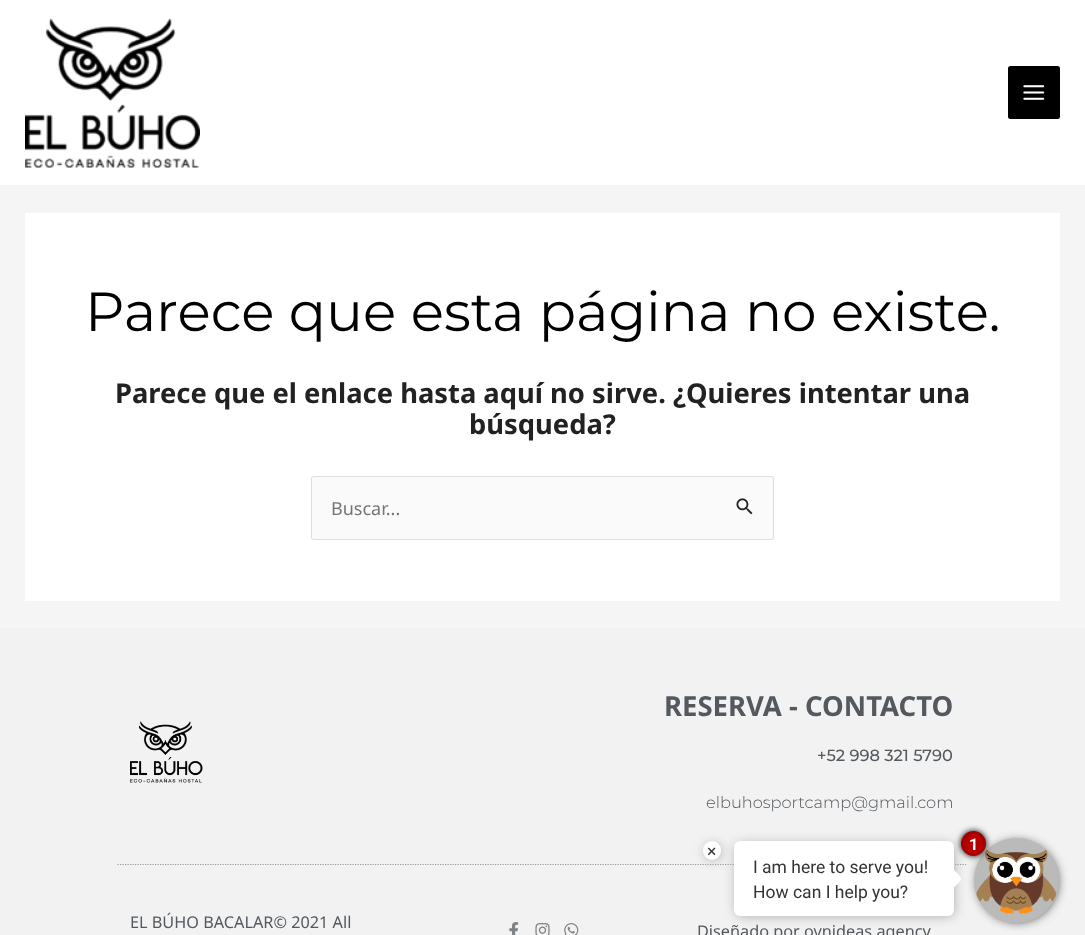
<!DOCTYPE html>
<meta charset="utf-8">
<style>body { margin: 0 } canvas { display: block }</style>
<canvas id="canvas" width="1085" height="935"></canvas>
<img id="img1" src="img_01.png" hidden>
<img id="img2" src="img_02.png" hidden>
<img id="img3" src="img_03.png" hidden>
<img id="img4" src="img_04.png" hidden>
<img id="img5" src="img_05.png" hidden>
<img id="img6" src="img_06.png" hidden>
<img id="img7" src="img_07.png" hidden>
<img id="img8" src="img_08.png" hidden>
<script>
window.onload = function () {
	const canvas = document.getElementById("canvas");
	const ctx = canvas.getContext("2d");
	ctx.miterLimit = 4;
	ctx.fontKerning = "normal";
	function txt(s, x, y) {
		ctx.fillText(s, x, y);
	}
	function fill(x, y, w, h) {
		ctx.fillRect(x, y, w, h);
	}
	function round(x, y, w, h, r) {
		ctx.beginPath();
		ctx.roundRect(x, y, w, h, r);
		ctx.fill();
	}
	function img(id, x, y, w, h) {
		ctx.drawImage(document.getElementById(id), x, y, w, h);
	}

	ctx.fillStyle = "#F5F5F5";
	fill(0, 0, 1085, 935);
	ctx.fillStyle = "#FFFFFF";
	fill(0, 0, 1085, 185);
	img("img1", 25, 18, 175, 150);
	ctx.fillStyle = "#000000";
	round(1008, 66, 52, 53, 2.5);
	img("img2", 1023, 85, 22, 15);
	ctx.fillStyle = "#FFFFFF";
	fill(25, 213, 1035, 388);
	ctx.fillStyle = "#FAFAFA";
	ctx.beginPath();
	ctx.roundRect(311.5, 476.5, 462, 63, 2);
	ctx.fill();
	ctx.strokeStyle = "#DDDDDD";
	ctx.stroke();
	img("img3", 736, 498, 17, 17);
	ctx.fillStyle = "#F2F2F2";
	fill(0, 628, 1085, 307);
	ctx.beginPath();
	ctx.moveTo(117.5, 864.5);
	ctx.lineTo(967.5, 864.5);
	ctx.strokeStyle = "#9B9B9B";
	ctx.lineWidth = 1.2;
	ctx.setLineDash([1.25, 1.25]);
	ctx.stroke();
	img("img4", 130, 721, 73, 62);
	img("img5", 509, 922, 10, 13);
	img("img6", 535, 923, 15, 12);
	img("img7", 564, 923, 15, 12);
	ctx.fillStyle = "#AAAAAA";
	ctx.filter = "blur(6px)";
	ctx.beginPath();
	ctx.roundRect(736, 844, 218, 72, 5);
	ctx.fill();
	ctx.filter = "none";
	ctx.fillStyle = "#FFFFFF";
	round(734, 841, 220, 75, 6);
	ctx.beginPath();
	ctx.moveTo(954, 870);
	ctx.bezierCurveTo(963.5, 879.5, 963.5, 878, 954, 887.5);
	ctx.lineTo(945, 879);
	ctx.closePath();
	ctx.fill();
	ctx.fillStyle = "#000000";
	ctx.filter = "blur(6px)";
	ctx.beginPath();
	ctx.roundRect(979, 843, 77, 77, 38.5);
	ctx.fill();
	ctx.filter = "none";
	ctx.fillStyle = "#BABABA";
	ctx.beginPath();
	ctx.arc(1016.5, 880.5, 42.5, 0, Math.PI * 2);
	ctx.fill();
	img("img8", 976, 849, 81, 65);
	ctx.fillStyle = "#000000";
	ctx.filter = "blur(3px)";
	ctx.beginPath();
	ctx.roundRect(961, 831, 25, 25, 12.5);
	ctx.fill();
	ctx.filter = "none";
	ctx.fillStyle = "#B60000";
	ctx.beginPath();
	ctx.arc(973.5, 843.5, 11, 0, Math.PI * 2);
	ctx.fill();
	ctx.strokeStyle = "#A30000";
	ctx.lineWidth = 3;
	ctx.setLineDash([]);
	ctx.stroke();
	ctx.fillStyle = "#AAAAAA";
	ctx.filter = "blur(6px)";
	ctx.beginPath();
	ctx.roundRect(705, 844, 16, 16, 8);
	ctx.fill();
	ctx.filter = "none";
	ctx.fillStyle = "#FFFFFF";
	round(703, 841, 18, 19, 9);
	ctx.font = "55px Montserrat";
	ctx.fillStyle = "#000000";
	txt("Parece que esta página no existe.", 85, 331);
	ctx.font = "bold 27.35px Noto Sans";
	ctx.fillStyle = "#222222";
	txt("Parece que el enlace hasta aquí no sirve. ¿Quieres intentar una", 115, 403);
	txt("búsqueda?", 469, 434);
	ctx.font = "18px Noto Sans";
	ctx.fillStyle = "#757575";
	txt("Buscar...", 331, 515);
	ctx.font = "bold 27.5px Noto Sans";
	ctx.fillStyle = "#54595F";
	txt("RESERVA - CONTACTO", 664, 716);
	ctx.font = "500 16.25px Montserrat";
	txt("+52 998 321 5790", 817, 761);
	ctx.font = "300 16.25px Montserrat";
	txt("elbuhosportcamp@gmail.com", 706, 808);
	ctx.font = "16.25px Noto Sans";
	txt("EL BÚHO BACALAR© 2021 All", 130, 928);
	txt("Diseñado por ovnideas.agency", 697, 937);
	ctx.font = "bold 16.25px Roboto";
	ctx.fillStyle = "#FFFFFF";
	txt("1", 969, 850);
	ctx.font = "17.5px Roboto";
	ctx.fillStyle = "#333333";
	txt("×", 707, 857);
	txt("I am here to serve you!", 753, 873);
	txt("How can I help you?", 753, 898);
};
</script>
